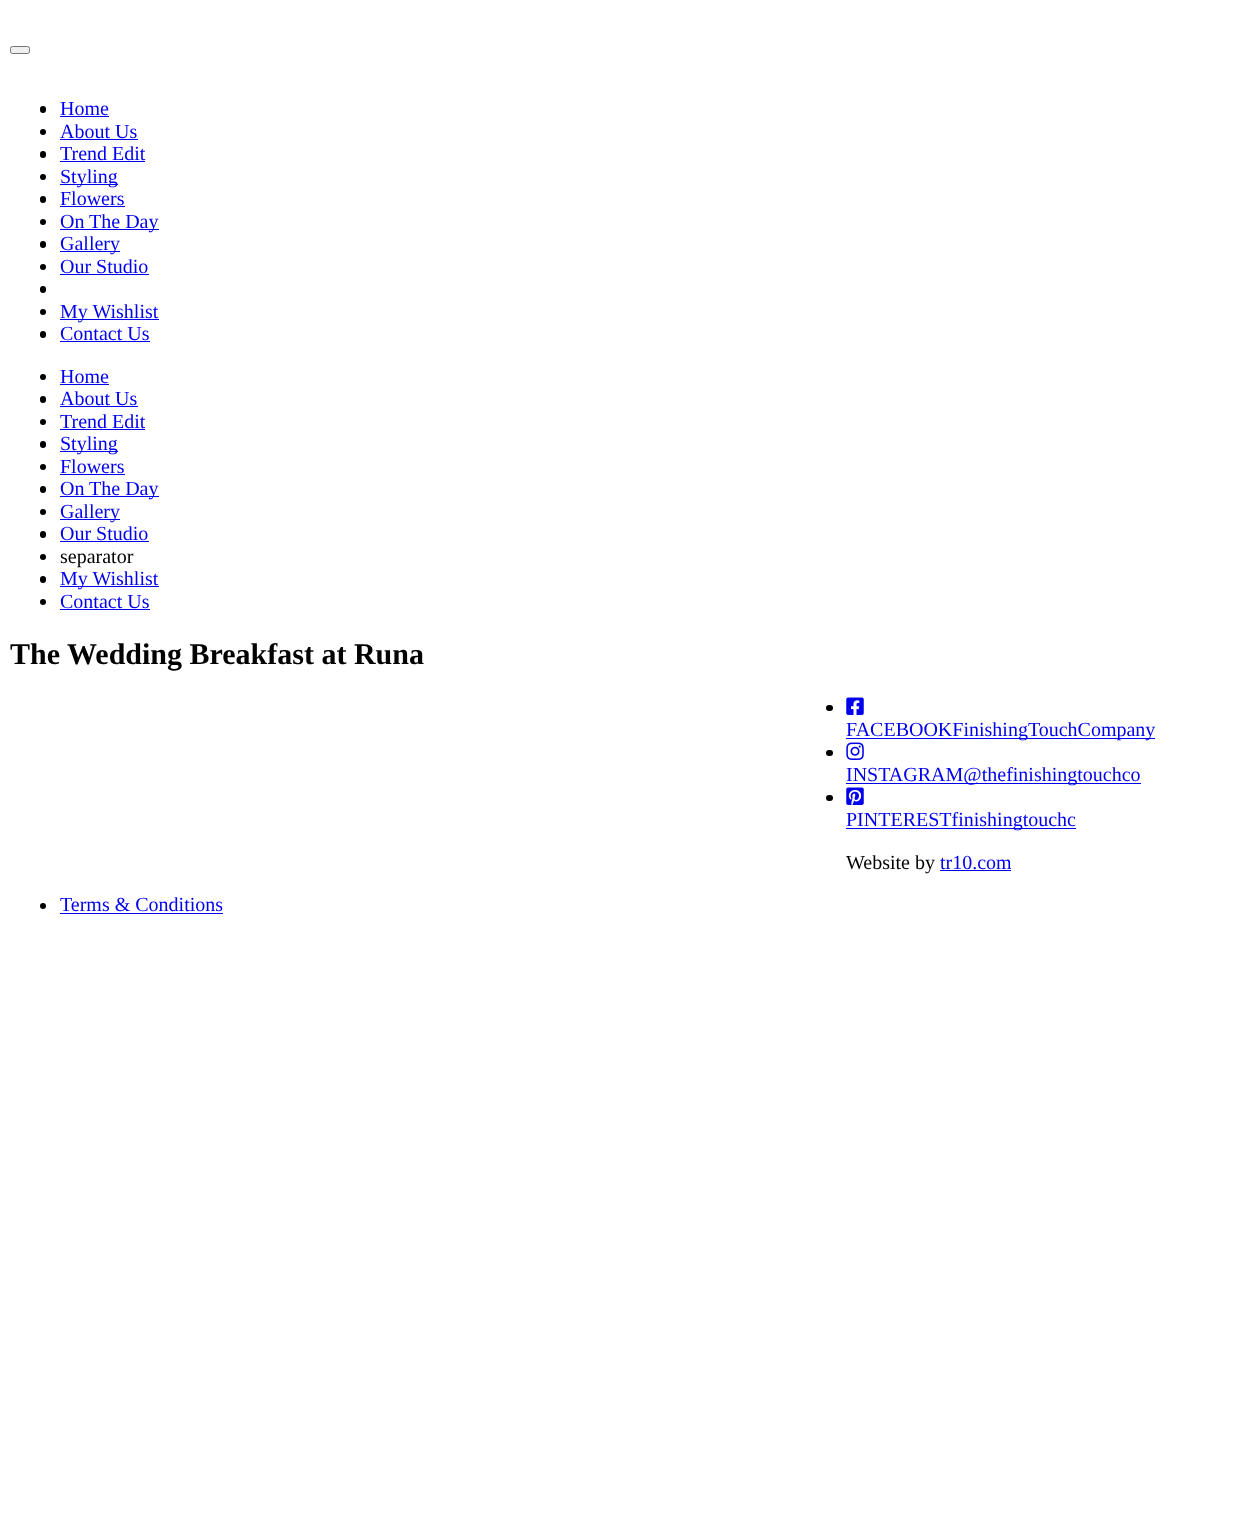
<!DOCTYPE html>
<meta charset="utf-8">
<style>body { margin: 0 } canvas { display: block }</style>
<canvas id="canvas" width="1245" height="1521"></canvas>
<img id="img1" src="img_01.png" hidden>
<img id="img2" src="img_02.png" hidden>
<img id="img3" src="img_03.png" hidden>
<script>
window.onload = function () {
	const canvas = document.getElementById("canvas");
	const ctx = canvas.getContext("2d");
	ctx.miterLimit = 4;
	ctx.fontKerning = "normal";
	function txt(s, x, y) {
		ctx.fillText(s, x, y);
	}
	function fill(x, y, w, h) {
		ctx.fillRect(x, y, w, h);
	}
	function round(x, y, w, h, r) {
		ctx.beginPath();
		ctx.roundRect(x, y, w, h, r);
		ctx.fill();
	}
	function img(id, x, y, w, h) {
		ctx.drawImage(document.getElementById(id), x, y, w, h);
	}

	ctx.fillStyle = "#FFFFFF";
	fill(0, 0, 1245, 1521);
	ctx.fillStyle = "#EFEFEF";
	ctx.beginPath();
	ctx.roundRect(10.5, 46.5, 19, 7, 2);
	ctx.fill();
	ctx.strokeStyle = "#767676";
	ctx.stroke();
	ctx.fillStyle = "#000000";
	round(40, 106, 6, 7, 3);
	ctx.fillStyle = "#0000EE";
	fill(60, 116, 49, 1);
	ctx.fillStyle = "#000000";
	ctx.beginPath();
	ctx.arc(43, 132, 3, 0, Math.PI * 2);
	ctx.fill();
	ctx.fillStyle = "#0000EE";
	fill(60, 139, 78, 1);
	ctx.fillStyle = "#000000";
	round(40, 151, 6, 7, 3);
	ctx.fillStyle = "#0000EE";
	fill(60, 161, 85, 1);
	ctx.fillStyle = "#000000";
	ctx.beginPath();
	ctx.arc(43, 177, 3, 0, Math.PI * 2);
	ctx.fill();
	ctx.fillStyle = "#0000EE";
	fill(60, 184, 58, 1);
	ctx.fillStyle = "#000000";
	round(40, 196, 6, 7, 3);
	ctx.fillStyle = "#0000EE";
	fill(60, 206, 65, 1);
	ctx.fillStyle = "#000000";
	ctx.beginPath();
	ctx.arc(43, 222, 3, 0, Math.PI * 2);
	ctx.fill();
	ctx.fillStyle = "#0000EE";
	fill(60, 229, 99, 1);
	ctx.fillStyle = "#000000";
	round(40, 241, 6, 7, 3);
	ctx.fillStyle = "#0000EE";
	fill(60, 251, 60, 1);
	ctx.fillStyle = "#000000";
	ctx.beginPath();
	ctx.arc(43, 267, 3, 0, Math.PI * 2);
	ctx.fill();
	ctx.fillStyle = "#0000EE";
	fill(60, 274, 89, 1);
	ctx.fillStyle = "#000000";
	round(40, 286, 6, 7, 3);
	ctx.beginPath();
	ctx.arc(43, 312, 3, 0, Math.PI * 2);
	ctx.fill();
	ctx.fillStyle = "#0000EE";
	fill(60, 319, 99, 1);
	ctx.fillStyle = "#000000";
	round(40, 331, 6, 7, 3);
	ctx.fillStyle = "#0000EE";
	fill(60, 341, 90, 1);
	ctx.fillStyle = "#000000";
	ctx.beginPath();
	ctx.arc(43, 377, 3, 0, Math.PI * 2);
	ctx.fill();
	ctx.fillStyle = "#0000EE";
	fill(60, 384, 49, 1);
	ctx.fillStyle = "#000000";
	round(40, 396, 6, 7, 3);
	ctx.fillStyle = "#0000EE";
	fill(60, 406, 78, 1);
	ctx.fillStyle = "#000000";
	ctx.beginPath();
	ctx.arc(43, 422, 3, 0, Math.PI * 2);
	ctx.fill();
	ctx.fillStyle = "#0000EE";
	fill(60, 429, 85, 1);
	ctx.fillStyle = "#000000";
	round(40, 441, 6, 7, 3);
	ctx.fillStyle = "#0000EE";
	fill(60, 451, 58, 1);
	ctx.fillStyle = "#000000";
	ctx.beginPath();
	ctx.arc(43, 467, 3, 0, Math.PI * 2);
	ctx.fill();
	ctx.fillStyle = "#0000EE";
	fill(60, 474, 65, 1);
	ctx.fillStyle = "#000000";
	round(40, 486, 6, 7, 3);
	ctx.fillStyle = "#0000EE";
	fill(60, 496, 99, 1);
	ctx.fillStyle = "#000000";
	ctx.beginPath();
	ctx.arc(43, 512, 3, 0, Math.PI * 2);
	ctx.fill();
	ctx.fillStyle = "#0000EE";
	fill(60, 519, 60, 1);
	ctx.fillStyle = "#000000";
	round(40, 531, 6, 7, 3);
	ctx.fillStyle = "#0000EE";
	fill(60, 541, 89, 1);
	ctx.fillStyle = "#000000";
	ctx.beginPath();
	ctx.arc(43, 557, 3, 0, Math.PI * 2);
	ctx.fill();
	round(40, 576, 6, 7, 3);
	ctx.fillStyle = "#0000EE";
	fill(60, 586, 99, 1);
	ctx.fillStyle = "#000000";
	ctx.beginPath();
	ctx.arc(43, 602, 3, 0, Math.PI * 2);
	ctx.fill();
	ctx.fillStyle = "#0000EE";
	fill(60, 609, 90, 1);
	ctx.fillStyle = "#000000";
	round(826, 705, 7, 6, 3);
	img("img1", 846, 697, 18, 18);
	ctx.fillStyle = "#0000EE";
	fill(846, 738, 309, 1);
	ctx.fillStyle = "#000000";
	round(826, 750, 7, 6, 3);
	img("img2", 846, 742, 18, 18);
	ctx.fillStyle = "#0000EE";
	fill(846, 783, 295, 1);
	ctx.fillStyle = "#000000";
	round(826, 795, 7, 6, 3);
	img("img3", 846, 787, 18, 18);
	ctx.fillStyle = "#0000EE";
	fill(846, 828, 230, 1);
	fill(940, 870, 71, 1);
	ctx.fillStyle = "#000000";
	ctx.beginPath();
	ctx.arc(43, 906, 3, 0, Math.PI * 2);
	ctx.fill();
	ctx.fillStyle = "#0000EE";
	fill(60, 913, 163, 1);
	ctx.font = "20px Liberation Serif";
	txt("Home", 60, 115);
	txt("About Us", 60, 138);
	txt("Trend Edit", 60, 160);
	txt("Styling", 60, 183);
	txt("Flowers", 60, 205);
	txt("On The Day", 60, 228);
	txt("Gallery", 60, 250);
	txt("Our Studio", 60, 273);
	txt("My Wishlist", 60, 318);
	txt("Contact Us", 60, 340);
	txt("Home", 60, 383);
	txt("About Us", 60, 405);
	txt("Trend Edit", 60, 428);
	txt("Styling", 60, 450);
	txt("Flowers", 60, 473);
	txt("On The Day", 60, 495);
	txt("Gallery", 60, 518);
	txt("Our Studio", 60, 540);
	ctx.fillStyle = "#000000";
	txt("separator", 60, 563);
	ctx.fillStyle = "#0000EE";
	txt("My Wishlist", 60, 585);
	txt("Contact Us", 60, 608);
	ctx.font = "bold 30px Liberation Serif";
	ctx.fillStyle = "#000000";
	txt("The Wedding Breakfast at Runa", 10, 664);
	ctx.font = "20px Liberation Serif";
	ctx.fillStyle = "#0000EE";
	txt("FACEBOOKFinishingTouchCompany", 846, 736);
	txt("INSTAGRAM@thefinishingtouchco", 846, 781);
	txt("PINTERESTfinishingtouchc", 846, 826);
	ctx.fillStyle = "#000000";
	txt("Website by", 846, 869);
	ctx.fillStyle = "#0000EE";
	txt("tr10.com", 940, 869);
	txt("Terms & Conditions", 60, 911);
};
</script>
